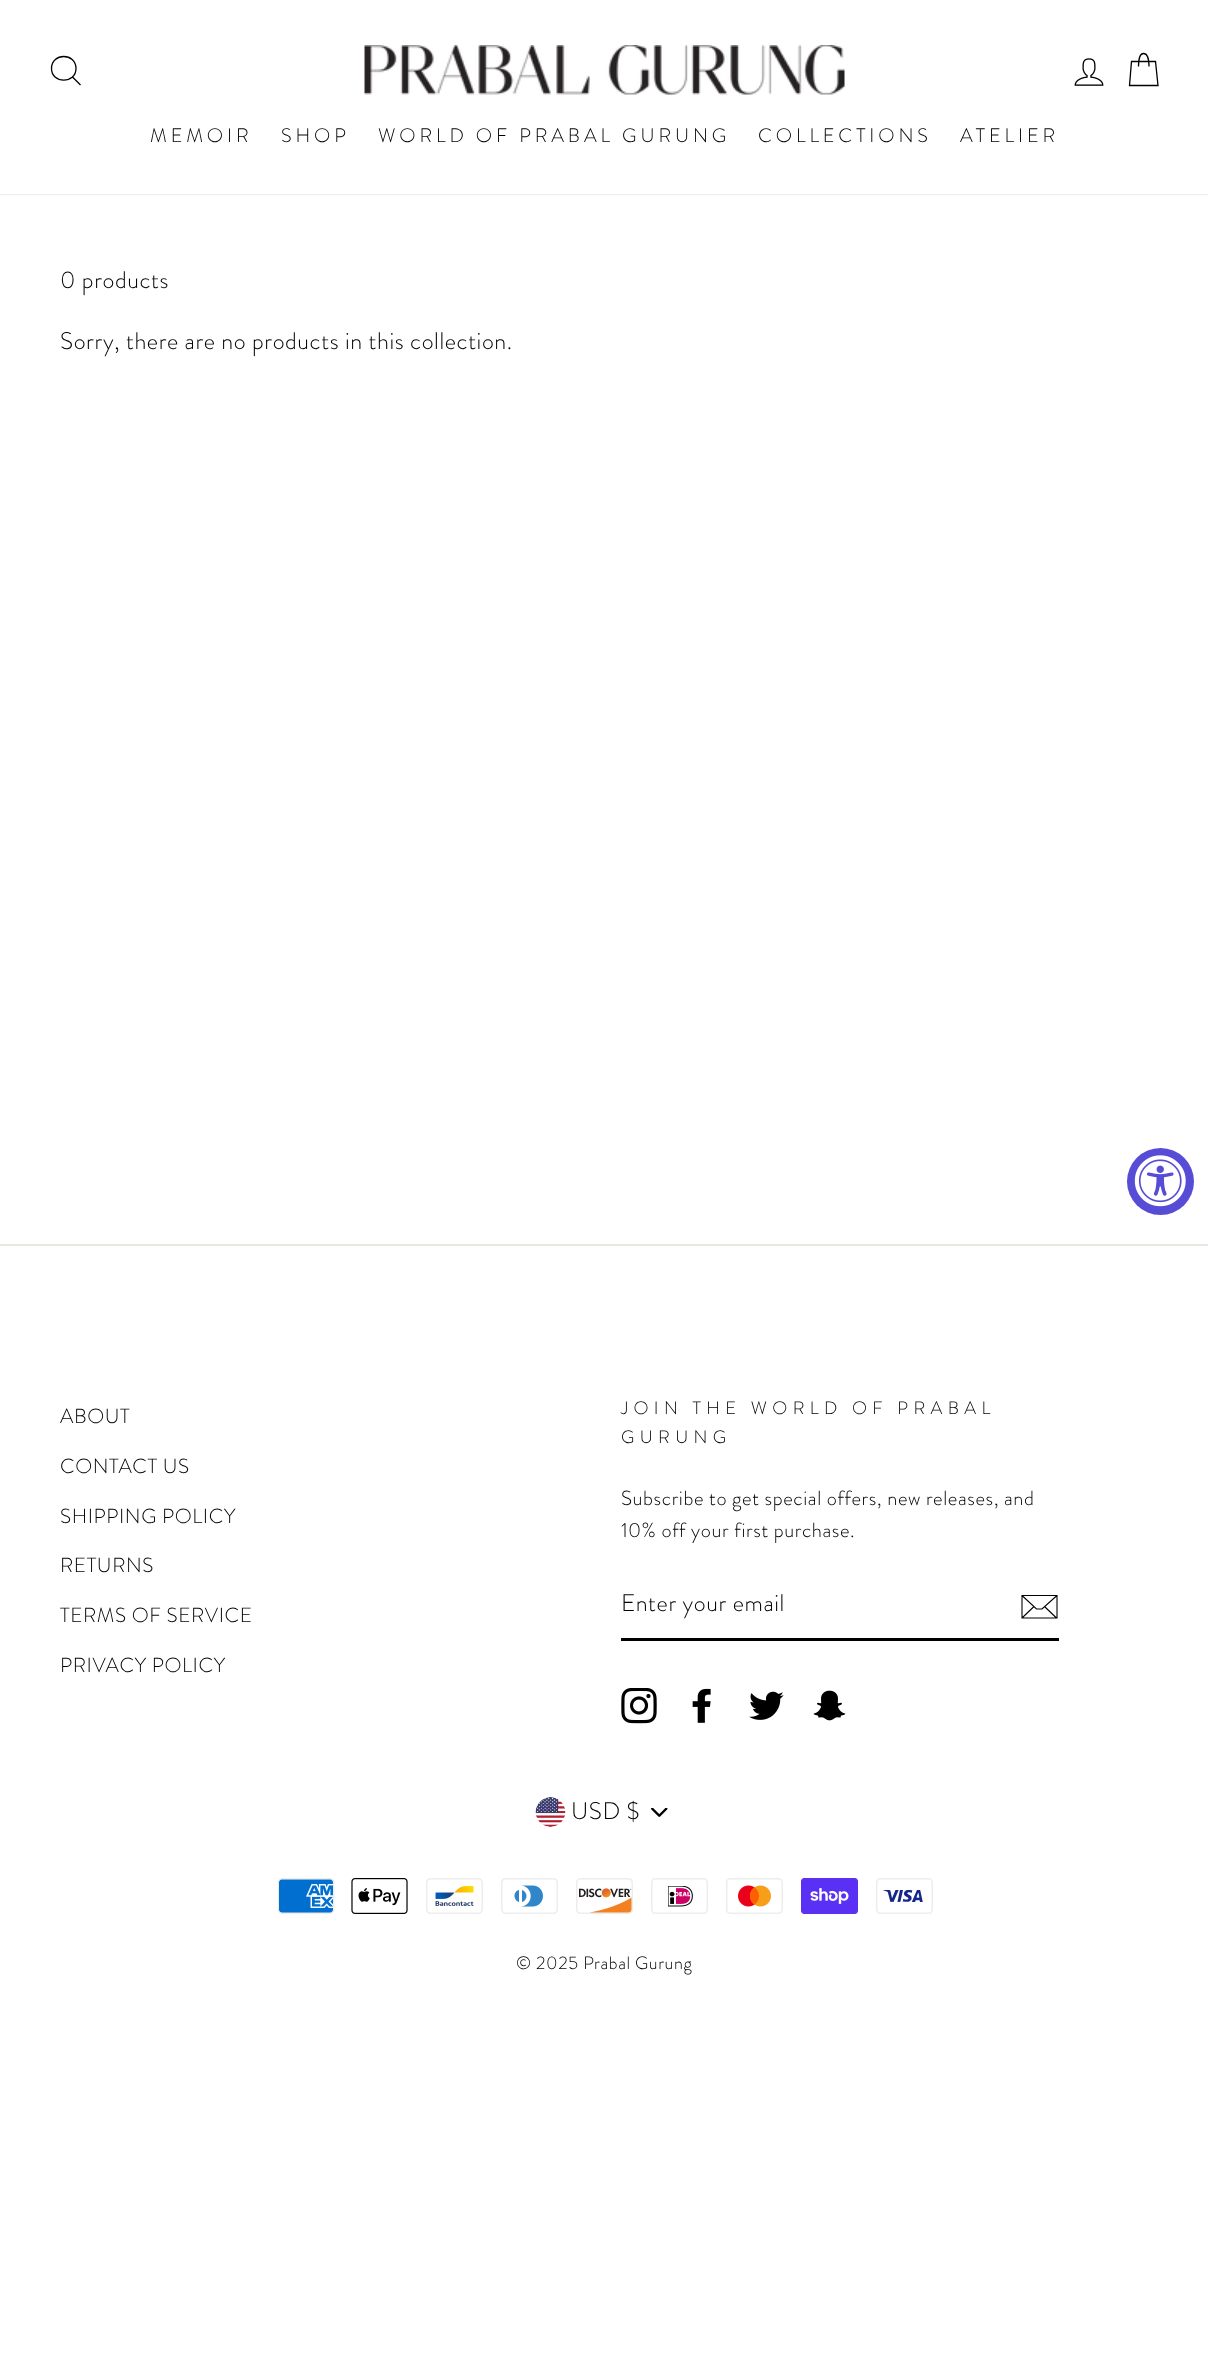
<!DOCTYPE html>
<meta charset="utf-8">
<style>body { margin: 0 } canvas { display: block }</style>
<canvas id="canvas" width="1208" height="2360"></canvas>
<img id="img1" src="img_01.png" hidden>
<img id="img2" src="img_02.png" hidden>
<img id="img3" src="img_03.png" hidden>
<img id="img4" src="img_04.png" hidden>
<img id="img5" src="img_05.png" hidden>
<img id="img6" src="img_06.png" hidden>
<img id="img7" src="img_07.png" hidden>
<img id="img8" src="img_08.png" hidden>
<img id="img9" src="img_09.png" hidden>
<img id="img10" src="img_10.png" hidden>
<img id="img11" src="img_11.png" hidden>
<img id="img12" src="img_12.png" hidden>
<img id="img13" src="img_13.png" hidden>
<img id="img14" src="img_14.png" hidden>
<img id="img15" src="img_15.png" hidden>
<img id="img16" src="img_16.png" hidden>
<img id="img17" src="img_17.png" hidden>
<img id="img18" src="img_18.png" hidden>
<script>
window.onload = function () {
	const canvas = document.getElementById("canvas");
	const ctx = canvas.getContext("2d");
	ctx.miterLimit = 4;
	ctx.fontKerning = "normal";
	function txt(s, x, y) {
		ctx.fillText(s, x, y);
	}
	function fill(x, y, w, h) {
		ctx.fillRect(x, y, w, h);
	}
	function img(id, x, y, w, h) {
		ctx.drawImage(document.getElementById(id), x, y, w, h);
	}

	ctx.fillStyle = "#FFFFFF";
	fill(0, 0, 1208, 2360);
	ctx.fillStyle = "rgba(0, 0, 0, 0.2)";
	ctx.filter = "blur(1px)";
	ctx.beginPath();
	ctx.rect(0, 0, 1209, 194);
	ctx.fill();
	ctx.filter = "none";
	ctx.fillStyle = "#FFFFFF";
	fill(0, 0, 1208, 194);
	ctx.beginPath();
	ctx.moveTo(76, 68.5);
	ctx.bezierCurveTo(76, 84, 51.5, 84, 51.5, 68.5);
	ctx.bezierCurveTo(51.5, 52.5, 76, 52.5, 76, 68.5);
	ctx.closePath();
	ctx.moveTo(80.5, 85);
	ctx.lineTo(72.5, 77);
	ctx.strokeStyle = "#000000";
	ctx.lineWidth = 1.3;
	ctx.stroke();
	img("img1", 364, 45, 481, 50);
	img("img2", 1074, 58, 30, 28);
	ctx.beginPath();
	ctx.moveTo(1138.5, 66.5);
	ctx.bezierCurveTo(1138.5, 56, 1140.5, 53.5, 1143.5, 53.5);
	ctx.bezierCurveTo(1146.5, 53.5, 1149, 56, 1149, 66.5);
	ctx.moveTo(1131.5, 61.5);
	ctx.lineTo(1155.5, 61.5);
	ctx.lineTo(1158, 85.5);
	ctx.lineTo(1129.5, 85.5);
	ctx.closePath();
	ctx.stroke();
	ctx.fillStyle = "#E8E8E1";
	fill(0, 1244, 1208, 2);
	ctx.fillStyle = "#000000";
	fill(621, 1638, 438, 3);
	ctx.beginPath();
	ctx.moveTo(1057, 1618);
	ctx.lineTo(1022, 1618);
	ctx.lineTo(1022, 1595.5);
	ctx.lineTo(1057, 1595.5);
	ctx.closePath();
	ctx.moveTo(1022, 1595.5);
	ctx.lineTo(1036.5, 1609);
	ctx.lineTo(1042, 1609);
	ctx.lineTo(1057, 1595.5);
	ctx.moveTo(1034, 1606.5);
	ctx.lineTo(1022.5, 1617.5);
	ctx.moveTo(1056.5, 1618);
	ctx.lineTo(1044.5, 1606.5);
	ctx.lineWidth = 1.1;
	ctx.stroke();
	img("img3", 621, 1688, 36, 36);
	img("img4", 692, 1688, 19, 35);
	img("img5", 749, 1691, 35, 29);
	img("img6", 813, 1690, 33, 31);
	img("img7", 651, 1808, 17, 9);
	img("img8", 535, 1797, 31, 30);
	img("img9", 278, 1878, 57, 36);
	img("img10", 351, 1878, 57, 36);
	img("img11", 426, 1878, 57, 36);
	img("img12", 501, 1878, 57, 36);
	img("img13", 576, 1878, 57, 36);
	img("img14", 651, 1878, 57, 36);
	img("img15", 726, 1878, 57, 36);
	img("img16", 801, 1878, 57, 36);
	img("img17", 876, 1878, 57, 36);
	ctx.fillStyle = "#574CD5";
	ctx.beginPath();
	ctx.arc(1160.5, 1181.5, 33.5, 0, Math.PI * 2);
	ctx.fill();
	img("img18", 1134, 1155, 52, 52);
	ctx.letterSpacing = "3.9px";
	ctx.font = "300 19.5px Brandon Grotesque";
	ctx.fillStyle = "#000000";
	txt("MEMOIR", 150, 142);
	txt("SHOP", 281, 142);
	txt("WORLD OF PRABAL GURUNG", 378, 142);
	txt("COLLECTIONS", 758, 142);
	txt("ATELIER", 960, 142);
	ctx.letterSpacing = "0.6px";
	ctx.font = "300 24px Brandon Grotesque";
	txt("0 products", 60, 288);
	txt("Sorry, there are no products in this collection.", 60, 349);
	ctx.font = "300 20.4px Brandon Grotesque";
	txt("ABOUT", 60, 1423);
	txt("CONTACT US", 60, 1473);
	txt("SHIPPING POLICY", 60, 1523);
	txt("RETURNS", 60, 1572);
	txt("TERMS OF SERVICE", 60, 1622);
	txt("PRIVACY POLICY", 60, 1672);
	ctx.letterSpacing = "5.4px";
	ctx.font = "300 18px Brandon Grotesque";
	txt("JOIN THE WORLD OF PRABAL", 621, 1414);
	txt("GURUNG", 621, 1443);
	ctx.letterSpacing = "0.6px";
	ctx.font = "300 20.4px Brandon Grotesque";
	txt("Subscribe to get special offers, new releases, and", 621, 1505);
	txt("10% off your first purchase.", 621, 1537);
	ctx.font = "300 24px Brandon Grotesque";
	txt("Enter your email", 621, 1611);
	txt("USD $", 571, 1819);
	ctx.font = "300 18px Brandon Grotesque";
	txt("© 2025 Prabal Gurung", 516, 1969);
};
</script>
